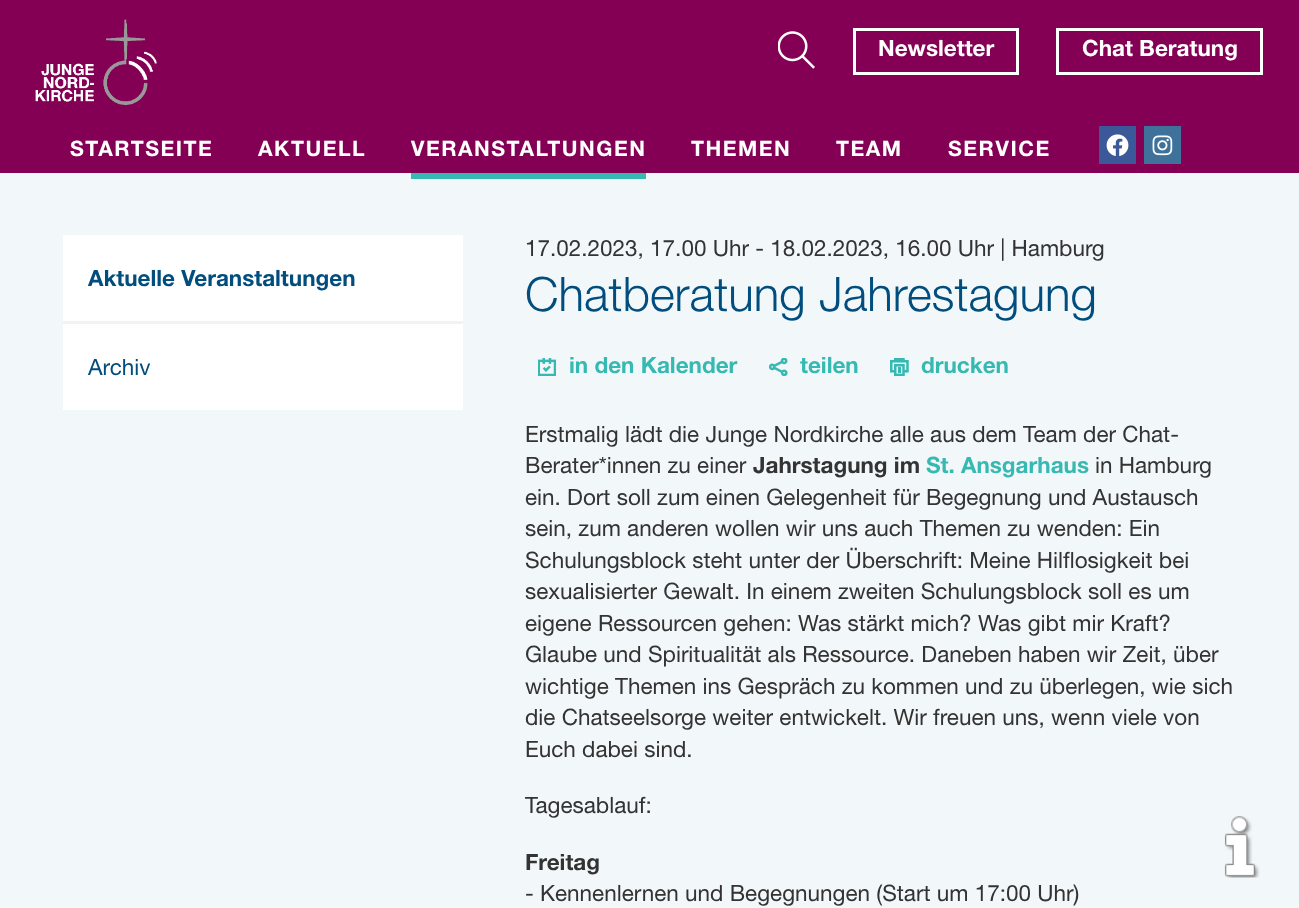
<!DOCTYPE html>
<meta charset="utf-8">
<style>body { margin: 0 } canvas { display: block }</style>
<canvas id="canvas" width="1299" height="908"></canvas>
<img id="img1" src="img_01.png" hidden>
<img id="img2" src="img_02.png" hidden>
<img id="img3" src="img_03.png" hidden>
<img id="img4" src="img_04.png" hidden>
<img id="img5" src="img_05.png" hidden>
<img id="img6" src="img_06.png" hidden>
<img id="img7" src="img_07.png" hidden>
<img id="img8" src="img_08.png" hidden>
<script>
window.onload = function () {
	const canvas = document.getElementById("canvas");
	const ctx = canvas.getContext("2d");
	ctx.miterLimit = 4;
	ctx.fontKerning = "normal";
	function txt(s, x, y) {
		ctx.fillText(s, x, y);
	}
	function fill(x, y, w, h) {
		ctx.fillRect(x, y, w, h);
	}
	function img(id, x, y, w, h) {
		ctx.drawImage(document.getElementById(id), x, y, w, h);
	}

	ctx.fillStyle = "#F2F7F9";
	fill(0, 0, 1299, 908);
	ctx.fillStyle = "#830055";
	fill(0, 0, 1299, 173);
	img("img1", 35, 19, 122, 86);
	img("img2", 778, 31, 37, 38);
	ctx.strokeStyle = "#FFFFFF";
	ctx.lineWidth = 3;
	ctx.strokeRect(854.5, 29.5, 163, 44);
	ctx.strokeRect(1057.5, 29.5, 204, 44);
	ctx.fillStyle = "#36B9B3";
	fill(411, 173, 235, 6);
	ctx.fillStyle = "#3B5998";
	fill(1099, 126, 37, 38);
	img("img3", 1106, 134, 23, 22);
	ctx.fillStyle = "#3F729B";
	fill(1144, 126, 37, 38);
	img("img4", 1152, 135, 21, 21);
	ctx.fillStyle = "#FFFFFF";
	fill(63, 235, 400, 175);
	ctx.fillStyle = "#F2F2F2";
	fill(63, 321, 400, 3);
	img("img5", 538, 358, 18, 18);
	img("img6", 769, 358, 19, 18);
	img("img7", 890, 358, 19, 18);
	img("img8", 1224, 816, 36, 62);
	ctx.font = "22.5px 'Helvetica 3'";
	ctx.fillStyle = "#FFFFFF";
	txt("Newsletter", 878, 56);
	txt("Chat Beratung", 1082, 56);
	ctx.letterSpacing = "1.5px";
	ctx.font = "21.25px 'Helvetica 3'";
	txt("STARTSEITE", 70, 156);
	txt("AKTUELL", 258, 156);
	txt("VERANSTALTUNGEN", 411, 156);
	txt("THEMEN", 691, 156);
	txt("TEAM", 836, 156);
	txt("SERVICE", 948, 156);
	ctx.letterSpacing = "0px";
	ctx.font = "22.5px 'Helvetica 3'";
	ctx.fillStyle = "#004D7E";
	txt("Aktuelle Veranstaltungen", 88, 286);
	ctx.font = "22.5px Helvetica";
	txt("Archiv", 88, 375);
	ctx.fillStyle = "#333333";
	txt("17.02.2023, 17.00 Uhr - 18.02.2023, 16.00 Uhr | Hamburg", 525, 256);
	ctx.font = "47.5px 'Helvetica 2'";
	ctx.fillStyle = "#004D7E";
	txt("Chatberatung Jahrestagung", 525, 311);
	ctx.font = "22.5px 'Helvetica 3'";
	ctx.fillStyle = "#36B9B3";
	txt("in den Kalender", 569, 373);
	txt("teilen", 800, 373);
	txt("drucken", 921, 373);
	ctx.font = "22.5px Helvetica";
	ctx.fillStyle = "#333333";
	txt("Erstmalig lädt die Junge Nordkirche alle aus dem Team der Chat-", 525, 442);
	txt("Berater*innen zu einer", 525, 473);
	ctx.font = "22.5px 'Helvetica 3'";
	txt("Jahrstagung im", 753, 473);
	ctx.fillStyle = "#36B9B3";
	txt("St. Ansgarhaus", 926, 473);
	ctx.font = "22.5px Helvetica";
	ctx.fillStyle = "#333333";
	txt("in Hamburg", 1095, 473);
	txt("ein. Dort soll zum einen Gelegenheit für Begegnung und Austausch", 525, 505);
	txt("sein, zum anderen wollen wir uns auch Themen zu wenden: Ein", 525, 536);
	txt("Schulungsblock steht unter der Überschrift: Meine Hilflosigkeit bei", 525, 568);
	txt("sexualisierter Gewalt. In einem zweiten Schulungsblock soll es um", 525, 599);
	txt("eigene Ressourcen gehen: Was stärkt mich? Was gibt mir Kraft?", 525, 631);
	txt("Glaube und Spiritualität als Ressource. Daneben haben wir Zeit, über", 525, 662);
	txt("wichtige Themen ins Gespräch zu kommen und zu überlegen, wie sich", 525, 694);
	txt("die Chatseelsorge weiter entwickelt. Wir freuen uns, wenn viele von", 525, 725);
	txt("Euch dabei sind.", 525, 757);
	txt("Tagesablauf:", 525, 813);
	ctx.font = "22.5px 'Helvetica 3'";
	txt("Freitag", 525, 870);
	ctx.font = "22.5px Helvetica";
	txt("- Kennenlernen und Begegnungen (Start um 17:00 Uhr)", 525, 901);
};
</script>
